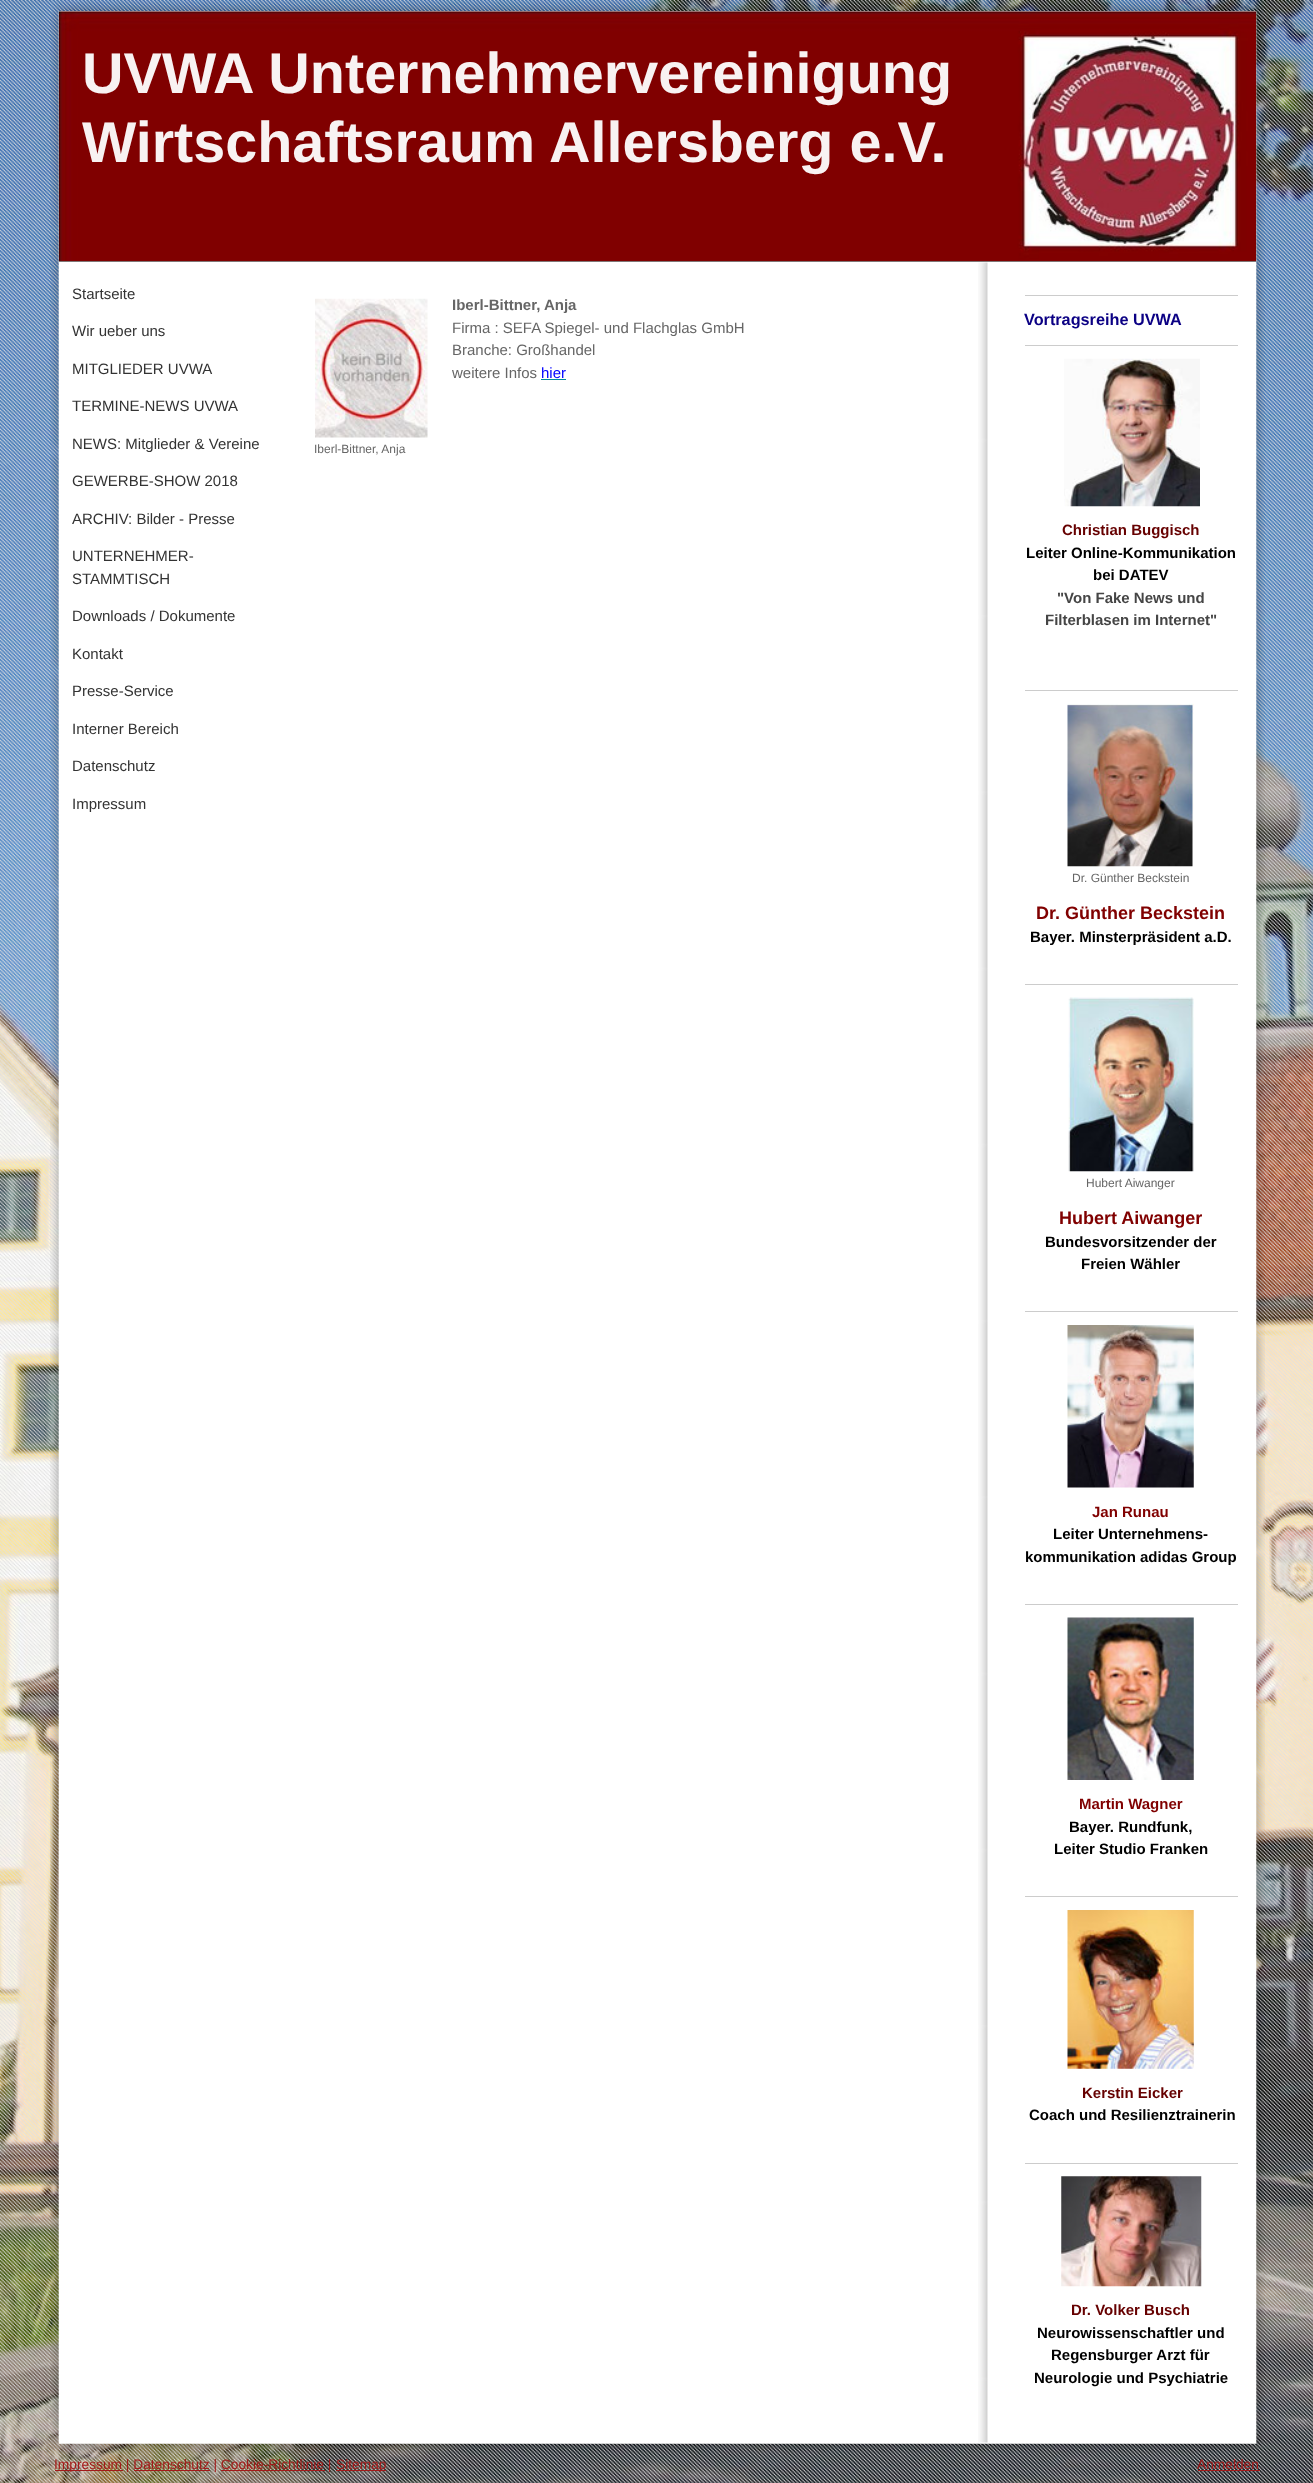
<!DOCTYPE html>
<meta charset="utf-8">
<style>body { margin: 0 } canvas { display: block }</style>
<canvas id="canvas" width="1313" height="2483"></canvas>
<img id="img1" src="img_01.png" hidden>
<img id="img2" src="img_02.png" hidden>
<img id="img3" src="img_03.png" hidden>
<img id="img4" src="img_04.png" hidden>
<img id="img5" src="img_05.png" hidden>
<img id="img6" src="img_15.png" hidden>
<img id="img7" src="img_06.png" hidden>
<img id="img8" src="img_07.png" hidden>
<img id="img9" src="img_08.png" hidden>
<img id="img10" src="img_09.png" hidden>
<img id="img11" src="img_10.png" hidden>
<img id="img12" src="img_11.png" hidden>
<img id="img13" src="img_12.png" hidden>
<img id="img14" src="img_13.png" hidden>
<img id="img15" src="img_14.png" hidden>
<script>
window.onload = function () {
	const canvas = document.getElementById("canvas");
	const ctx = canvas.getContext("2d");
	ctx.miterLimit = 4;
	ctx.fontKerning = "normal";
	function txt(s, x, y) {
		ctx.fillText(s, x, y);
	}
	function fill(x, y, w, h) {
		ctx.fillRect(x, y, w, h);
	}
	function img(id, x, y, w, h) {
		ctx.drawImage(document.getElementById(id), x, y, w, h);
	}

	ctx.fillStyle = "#FFFFFF";
	fill(0, 0, 1313, 2483);
	img("img1", 0, 0, 1313, 2483);
	img("img2", 0, 0, 1313, 2483);
	img("img3", 52, 2, 1210, 9);
	img("img4", 50, 11, 1215, 2432);
	ctx.fillStyle = "#7F7F7F";
	fill(59, 261, 1197, 1);
	ctx.fillStyle = "#FFFFFF";
	fill(59, 11, 1197, 1);
	img("img5", 58, 11, 1199, 251);
	img("img6", 52, 2442, 1210, 11);
	fill(59, 2442, 1197, 1);
	img("img7", 978, 262, 10, 2181);
	ctx.fillStyle = "#00889C";
	fill(541, 379, 25, 1);
	img("img8", 315, 298, 113, 140);
	ctx.fillStyle = "#CCCCCC";
	fill(1025, 295, 213, 1);
	fill(1025, 345, 213, 1);
	img("img9", 1064, 358, 136, 149);
	fill(1025, 690, 213, 1);
	img("img10", 1067, 703, 127, 164);
	fill(1025, 984, 213, 1);
	img("img11", 1068, 997, 126, 175);
	fill(1025, 1311, 213, 1);
	img("img12", 1067, 1325, 127, 163);
	fill(1025, 1604, 213, 1);
	img("img13", 1067, 1617, 127, 163);
	fill(1025, 1896, 213, 1);
	img("img14", 1067, 1910, 127, 159);
	fill(1025, 2163, 213, 1);
	img("img15", 1061, 2176, 141, 111);
	ctx.fillStyle = "#A31A1A";
	fill(55, 2470, 68, 1);
	fill(336, 2470, 50, 1);
	fill(134, 2470, 76, 1);
	fill(221, 2470, 104, 1);
	fill(1198, 2470, 62, 1);
	ctx.font = "bold 57.5px Liberation Sans";
	ctx.fillStyle = "#F8F2F2";
	txt("UVWA Unternehmervereinigung", 82, 93);
	txt("Wirtschaftsraum Allersberg e.V.", 82, 162);
	ctx.font = "15px Liberation Sans";
	ctx.fillStyle = "#333333";
	txt("Startseite", 72, 299);
	txt("Wir ueber uns", 72, 336);
	txt("MITGLIEDER UVWA", 72, 374);
	txt("TERMINE-NEWS UVWA", 72, 411);
	txt("NEWS: Mitglieder & Vereine", 72, 449);
	txt("GEWERBE-SHOW 2018", 72, 486);
	txt("ARCHIV: Bilder - Presse", 72, 524);
	txt("UNTERNEHMER-", 72, 561);
	txt("STAMMTISCH", 72, 584);
	txt("Downloads / Dokumente", 72, 621);
	txt("Kontakt", 72, 659);
	txt("Presse-Service", 72, 696);
	txt("Interner Bereich", 72, 734);
	txt("Datenschutz", 72, 771);
	txt("Impressum", 72, 809);
	ctx.font = "bold 15px Liberation Sans";
	ctx.fillStyle = "#666666";
	txt("Iberl-Bittner, Anja", 452, 310);
	ctx.font = "15px Liberation Sans";
	txt("Firma : SEFA Spiegel- und Flachglas GmbH", 452, 333);
	txt("Branche: Großhandel", 452, 355);
	txt("weitere Infos", 452, 378);
	ctx.fillStyle = "#0000FF";
	txt("hier", 541, 378);
	ctx.font = "12px Liberation Sans";
	ctx.fillStyle = "#666666";
	txt("Iberl-Bittner, Anja", 314, 453);
	ctx.font = "bold 16.25px Liberation Sans";
	ctx.fillStyle = "#0B0084";
	txt("Vortragsreihe UVWA", 1024, 325);
	ctx.font = "bold 15px Liberation Sans";
	ctx.fillStyle = "#660000";
	txt("Christian Buggisch", 1062, 535);
	ctx.fillStyle = "#000000";
	txt("Leiter Online-Kommunikation", 1026, 558);
	txt("bei DATEV", 1093, 580);
	ctx.fillStyle = "#454545";
	txt("\"Von Fake News und", 1057, 603);
	txt("Filterblasen im Internet\"", 1045, 625);
	ctx.font = "12px Liberation Sans";
	ctx.fillStyle = "#666666";
	txt("Dr. Günther Beckstein", 1072, 882);
	ctx.font = "bold 18px Liberation Sans";
	ctx.fillStyle = "#800000";
	txt("Dr. Günther Beckstein", 1036, 919);
	ctx.font = "bold 15px Liberation Sans";
	ctx.fillStyle = "#000000";
	txt("Bayer. Minsterpräsident a.D.", 1030, 942);
	ctx.font = "12px Liberation Sans";
	ctx.fillStyle = "#666666";
	txt("Hubert Aiwanger", 1086, 1187);
	ctx.font = "bold 18px Liberation Sans";
	ctx.fillStyle = "#800000";
	txt("Hubert Aiwanger", 1059, 1224);
	ctx.font = "bold 15px Liberation Sans";
	ctx.fillStyle = "#000000";
	txt("Bundesvorsitzender der", 1045, 1247);
	txt("Freien Wähler", 1081, 1269);
	ctx.fillStyle = "#800000";
	txt("Jan Runau", 1092, 1517);
	ctx.fillStyle = "#000000";
	txt("Leiter Unternehmens-", 1053, 1539);
	txt("kommunikation adidas Group", 1025, 1562);
	ctx.fillStyle = "#800000";
	txt("Martin Wagner", 1079, 1809);
	ctx.fillStyle = "#000000";
	txt("Bayer. Rundfunk,", 1069, 1832);
	txt("Leiter Studio Franken", 1054, 1854);
	ctx.fillStyle = "#660000";
	txt("Kerstin Eicker", 1082, 2098);
	ctx.fillStyle = "#000000";
	txt("Coach und Resilienztrainerin", 1029, 2120);
	ctx.fillStyle = "#660000";
	txt("Dr. Volker Busch", 1071, 2315);
	ctx.fillStyle = "#000000";
	txt("Neurowissenschaftler und", 1037, 2338);
	txt("Regensburger Arzt für", 1051, 2360);
	txt("Neurologie und Psychiatrie", 1034, 2383);
	ctx.font = "13.75px Liberation Sans";
	ctx.fillStyle = "#A31A1A";
	txt("Impressum | Datenschutz | Cookie-Richtlinie |", 54, 2469);
	txt("Sitemap", 336, 2469);
	txt("Anmelden", 1197, 2469);
};
</script>
